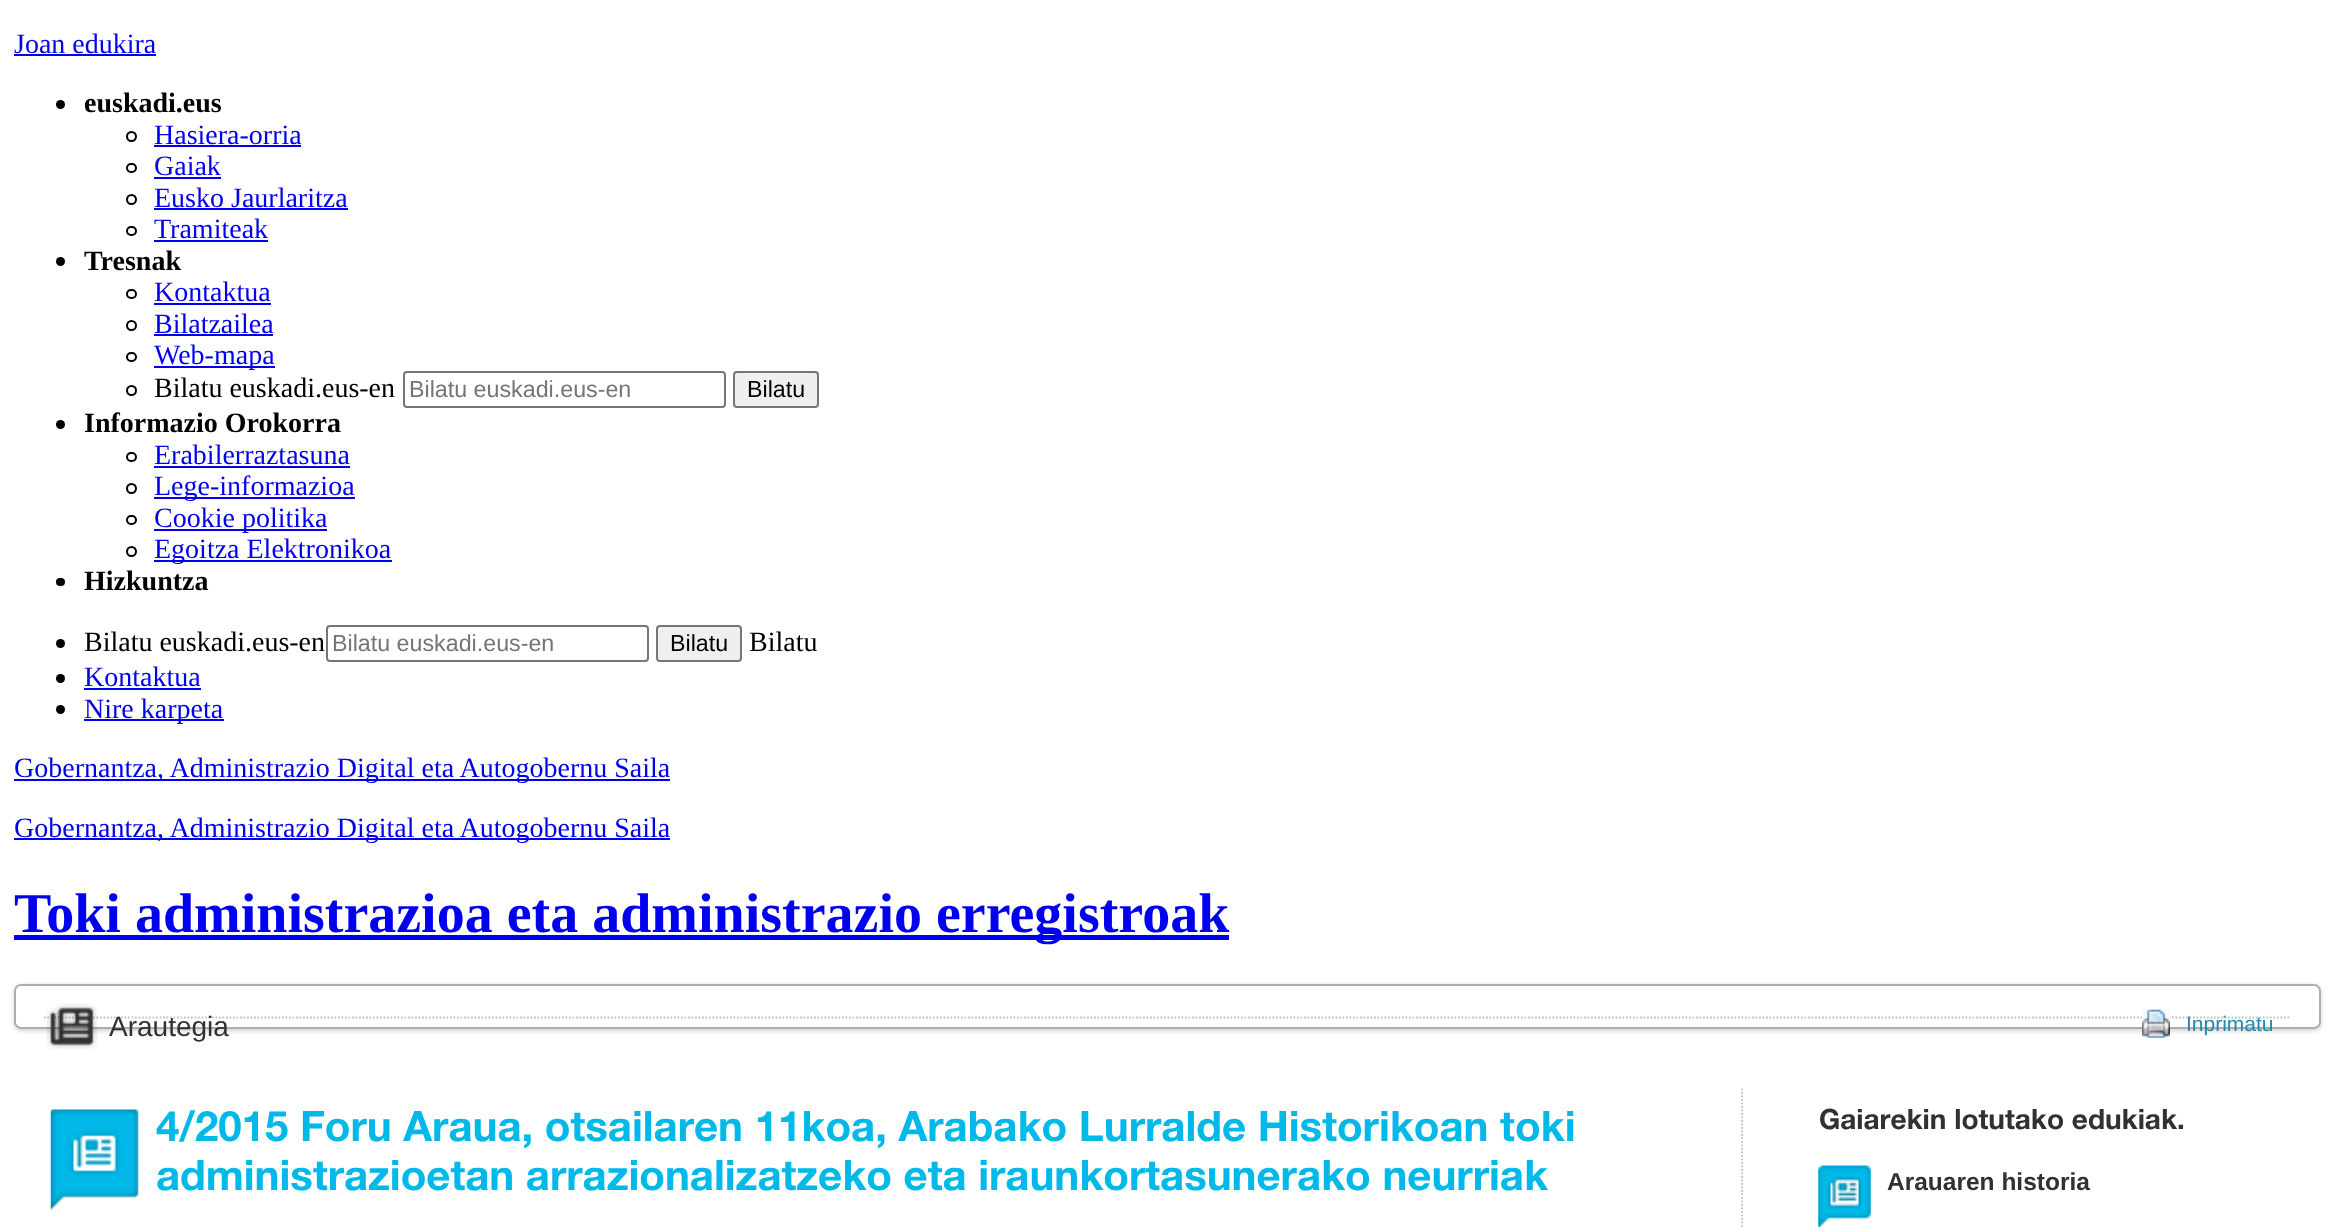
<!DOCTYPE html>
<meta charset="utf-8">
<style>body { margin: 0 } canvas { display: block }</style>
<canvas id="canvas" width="2333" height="1227"></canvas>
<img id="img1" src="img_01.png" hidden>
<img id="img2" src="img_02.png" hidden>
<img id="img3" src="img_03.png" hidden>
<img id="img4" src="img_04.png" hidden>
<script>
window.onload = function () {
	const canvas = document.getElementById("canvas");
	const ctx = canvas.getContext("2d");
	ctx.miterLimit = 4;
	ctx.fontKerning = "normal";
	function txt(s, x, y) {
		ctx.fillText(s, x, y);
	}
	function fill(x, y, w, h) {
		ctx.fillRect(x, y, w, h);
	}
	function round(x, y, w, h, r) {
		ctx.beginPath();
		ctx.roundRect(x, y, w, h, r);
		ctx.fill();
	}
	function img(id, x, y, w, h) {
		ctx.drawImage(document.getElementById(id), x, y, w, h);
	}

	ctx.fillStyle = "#FFFFFF";
	fill(0, 0, 2333, 1227);
	ctx.fillStyle = "#0000EE";
	fill(14, 54, 142, 2);
	ctx.fillStyle = "#000000";
	ctx.beginPath();
	ctx.arc(60.5, 104.5, 4.5, 0, Math.PI * 2);
	ctx.fill();
	ctx.beginPath();
	ctx.arc(131.5, 136.5, 4.5, 0, Math.PI * 2);
	ctx.strokeStyle = "#000000";
	ctx.lineWidth = 2;
	ctx.stroke();
	ctx.fillStyle = "#0000EE";
	fill(154, 145, 147, 2);
	ctx.beginPath();
	ctx.roundRect(127, 164, 9, 8, 4);
	ctx.stroke();
	fill(154, 177, 67, 2);
	ctx.beginPath();
	ctx.arc(131.5, 199.5, 4.5, 0, Math.PI * 2);
	ctx.stroke();
	fill(154, 208, 194, 2);
	ctx.beginPath();
	ctx.roundRect(127, 227, 9, 8, 4);
	ctx.stroke();
	fill(154, 240, 114, 2);
	ctx.fillStyle = "#000000";
	ctx.beginPath();
	ctx.arc(60.5, 261.5, 4.5, 0, Math.PI * 2);
	ctx.fill();
	ctx.beginPath();
	ctx.roundRect(127, 290, 9, 8, 4);
	ctx.stroke();
	ctx.fillStyle = "#0000EE";
	fill(154, 303, 117, 2);
	ctx.beginPath();
	ctx.arc(131.5, 325.5, 4.5, 0, Math.PI * 2);
	ctx.stroke();
	fill(154, 334, 119, 2);
	ctx.beginPath();
	ctx.roundRect(127, 353, 9, 8, 4);
	ctx.stroke();
	fill(154, 366, 121, 2);
	ctx.beginPath();
	ctx.arc(131.5, 390.5, 4.5, 0, Math.PI * 2);
	ctx.stroke();
	ctx.beginPath();
	ctx.roundRect(404, 372, 321, 35, 3);
	ctx.strokeStyle = "#767676";
	ctx.stroke();
	ctx.fillStyle = "#EFEFEF";
	ctx.beginPath();
	ctx.roundRect(734, 372, 84, 35, 3);
	ctx.fill();
	ctx.stroke();
	ctx.fillStyle = "#000000";
	ctx.beginPath();
	ctx.arc(60.5, 424.5, 4.5, 0, Math.PI * 2);
	ctx.fill();
	ctx.beginPath();
	ctx.roundRect(127, 453, 9, 8, 4);
	ctx.strokeStyle = "#000000";
	ctx.stroke();
	ctx.fillStyle = "#0000EE";
	fill(154, 466, 196, 2);
	ctx.beginPath();
	ctx.arc(131.5, 488.5, 4.5, 0, Math.PI * 2);
	ctx.stroke();
	fill(154, 497, 201, 2);
	ctx.beginPath();
	ctx.roundRect(127, 516, 9, 8, 4);
	ctx.stroke();
	fill(154, 529, 173, 2);
	ctx.beginPath();
	ctx.arc(131.5, 551.5, 4.5, 0, Math.PI * 2);
	ctx.stroke();
	fill(154, 560, 238, 2);
	ctx.fillStyle = "#000000";
	round(56, 578, 9, 8, 4);
	ctx.beginPath();
	ctx.arc(60.5, 643.5, 4.5, 0, Math.PI * 2);
	ctx.fill();
	ctx.beginPath();
	ctx.roundRect(327, 626, 321, 35, 3);
	ctx.strokeStyle = "#767676";
	ctx.stroke();
	ctx.fillStyle = "#EFEFEF";
	ctx.beginPath();
	ctx.roundRect(657, 626, 84, 35, 3);
	ctx.fill();
	ctx.stroke();
	ctx.fillStyle = "#000000";
	ctx.beginPath();
	ctx.arc(60.5, 678.5, 4.5, 0, Math.PI * 2);
	ctx.fill();
	ctx.fillStyle = "#0000EE";
	fill(84, 688, 117, 2);
	ctx.fillStyle = "#000000";
	ctx.beginPath();
	ctx.arc(60.5, 709.5, 4.5, 0, Math.PI * 2);
	ctx.fill();
	ctx.fillStyle = "#0000EE";
	fill(84, 719, 140, 2);
	fill(14, 779, 656, 2);
	fill(14, 838, 656, 2);
	fill(14, 935, 1215, 5);
	ctx.save();
	ctx.beginPath();
	ctx.moveTo(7, 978);
	ctx.lineTo(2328, 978);
	ctx.lineTo(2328, 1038);
	ctx.lineTo(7, 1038);
	ctx.closePath();
	ctx.moveTo(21, 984);
	ctx.lineTo(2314, 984);
	ctx.bezierCurveTo(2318, 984, 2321, 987, 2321, 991);
	ctx.lineTo(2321, 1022);
	ctx.bezierCurveTo(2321, 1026, 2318, 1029, 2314, 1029);
	ctx.lineTo(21, 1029);
	ctx.bezierCurveTo(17, 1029, 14, 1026, 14, 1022);
	ctx.lineTo(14, 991);
	ctx.bezierCurveTo(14, 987, 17, 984, 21, 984);
	ctx.closePath();
	ctx.clip("evenodd");
	ctx.fillStyle = "#D2D2D2";
	ctx.filter = "blur(2px)";
	ctx.beginPath();
	ctx.roundRect(14, 985, 2307, 46, 7);
	ctx.fill();
	ctx.filter = "none";
	ctx.restore();
	ctx.beginPath();
	ctx.roundRect(15, 985, 2305, 43, 6);
	ctx.strokeStyle = "#ADADAD";
	ctx.stroke();
	ctx.beginPath();
	ctx.moveTo(44, 1017.5);
	ctx.lineTo(2291, 1017.5);
	ctx.strokeStyle = "#C1C1C1";
	ctx.lineWidth = 1.8;
	ctx.setLineDash([1.75, 1.75]);
	ctx.stroke();
	img("img1", 46, 1003, 52, 47);
	img("img2", 2142, 1009, 28, 29);
	ctx.beginPath();
	ctx.moveTo(1742, 1088.5);
	ctx.lineTo(1742, 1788.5);
	ctx.stroke();
	img("img3", 50, 1109, 89, 101);
	img("img4", 1818, 1165, 53, 62);
	ctx.font = "28px Liberation Serif";
	txt("Joan edukira", 14, 53);
	ctx.font = "bold 28px Liberation Serif";
	ctx.fillStyle = "#000000";
	txt("euskadi.eus", 84, 112);
	ctx.font = "28px Liberation Serif";
	ctx.fillStyle = "#0000EE";
	txt("Hasiera-orria", 154, 144);
	txt("Gaiak", 154, 175);
	txt("Eusko Jaurlaritza", 154, 207);
	txt("Tramiteak", 154, 238);
	ctx.font = "bold 28px Liberation Serif";
	ctx.fillStyle = "#000000";
	txt("Tresnak", 84, 270);
	ctx.font = "28px Liberation Serif";
	ctx.fillStyle = "#0000EE";
	txt("Kontaktua", 154, 301);
	txt("Bilatzailea", 154, 333);
	txt("Web-mapa", 154, 364);
	ctx.fillStyle = "#000000";
	txt("Bilatu euskadi.eus-en", 154, 397);
	ctx.font = "23.25px Liberation Sans";
	ctx.fillStyle = "#757575";
	txt("Bilatu euskadi.eus-en", 409, 397);
	ctx.fillStyle = "#000000";
	txt("Bilatu", 747, 397);
	ctx.font = "bold 28px Liberation Serif";
	txt("Informazio Orokorra", 84, 432);
	ctx.font = "28px Liberation Serif";
	ctx.fillStyle = "#0000EE";
	txt("Erabilerraztasuna", 154, 464);
	txt("Lege-informazioa", 154, 495);
	txt("Cookie politika", 154, 527);
	txt("Egoitza Elektronikoa", 154, 558);
	ctx.font = "bold 28px Liberation Serif";
	ctx.fillStyle = "#000000";
	txt("Hizkuntza", 84, 590);
	ctx.font = "28px Liberation Serif";
	txt("Bilatu euskadi.eus-en", 84, 651);
	ctx.font = "23.25px Liberation Sans";
	ctx.fillStyle = "#757575";
	txt("Bilatu euskadi.eus-en", 332, 651);
	ctx.fillStyle = "#000000";
	txt("Bilatu", 670, 651);
	ctx.font = "28px Liberation Serif";
	txt("Bilatu", 749, 651);
	ctx.fillStyle = "#0000EE";
	txt("Kontaktua", 84, 686);
	txt("Nire karpeta", 84, 718);
	txt("Gobernantza, Administrazio Digital eta Autogobernu Saila", 14, 777);
	txt("Gobernantza, Administrazio Digital eta Autogobernu Saila", 14, 837);
	ctx.font = "bold 56px Liberation Serif";
	txt("Toki administrazioa eta administrazio erregistroak", 14, 932);
	ctx.font = "28px Liberation Sans";
	ctx.fillStyle = "#313131";
	txt("Arautegia", 109, 1036);
	ctx.font = "21px Liberation Sans";
	ctx.fillStyle = "#208AAF";
	txt("Inprimatu", 2186, 1031);
	ctx.font = "bold 42px 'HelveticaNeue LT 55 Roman'";
	ctx.fillStyle = "#00B9E9";
	txt("4/2015 Foru Araua, otsailaren 11koa, Arabako Lurralde Historikoan toki", 156, 1141);
	txt("administrazioetan arrazionalizatzeko eta iraunkortasunerako neurriak", 156, 1190);
	ctx.font = "bold 28px 'HelveticaNeue LT 55 Roman'";
	ctx.fillStyle = "#313131";
	txt("Gaiarekin lotutako edukiak.", 1819, 1129);
	ctx.font = "bold 24.5px Liberation Sans";
	txt("Arauaren historia", 1887, 1190);
};
</script>
